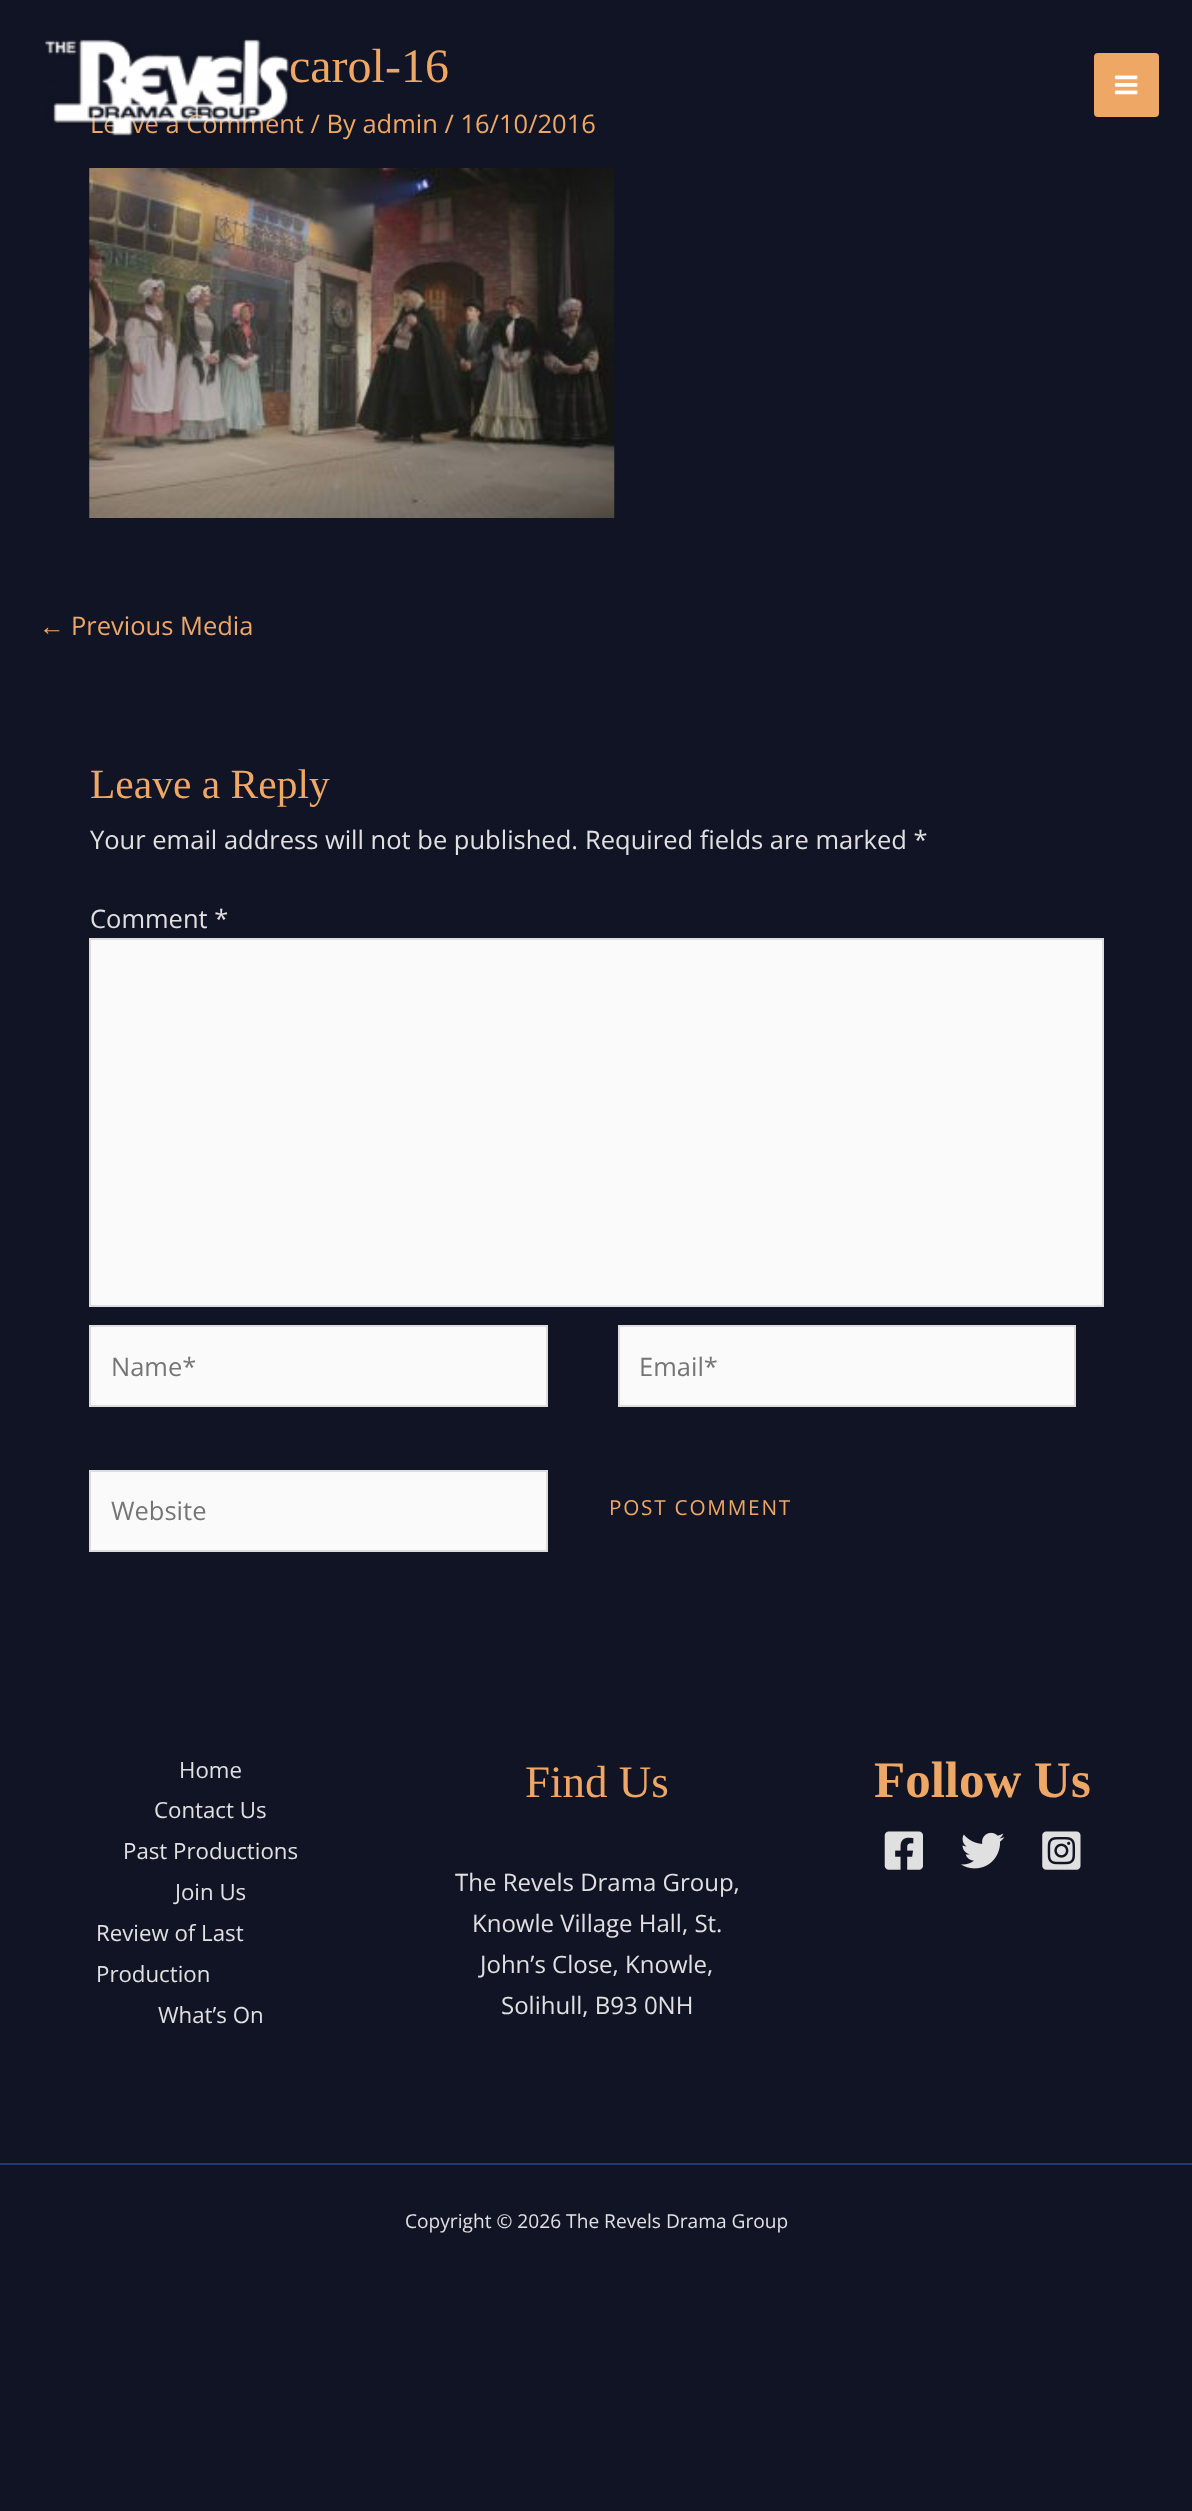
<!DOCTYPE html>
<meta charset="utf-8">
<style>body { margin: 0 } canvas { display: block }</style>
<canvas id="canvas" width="1192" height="2511"></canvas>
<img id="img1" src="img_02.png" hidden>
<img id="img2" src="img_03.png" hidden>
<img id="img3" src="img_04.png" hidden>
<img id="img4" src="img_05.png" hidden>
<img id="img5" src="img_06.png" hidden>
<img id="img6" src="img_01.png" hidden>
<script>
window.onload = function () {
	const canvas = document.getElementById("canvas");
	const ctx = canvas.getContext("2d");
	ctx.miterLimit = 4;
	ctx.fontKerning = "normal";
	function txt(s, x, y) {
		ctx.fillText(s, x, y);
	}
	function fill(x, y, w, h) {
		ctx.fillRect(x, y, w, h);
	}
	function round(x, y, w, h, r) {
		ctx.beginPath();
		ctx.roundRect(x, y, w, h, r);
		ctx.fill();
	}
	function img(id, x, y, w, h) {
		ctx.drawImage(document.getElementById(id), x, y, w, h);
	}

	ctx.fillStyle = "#111424";
	fill(0, 0, 1192, 2511);
	ctx.fillStyle = "#EFA765";
	round(1094, 53, 65, 64, 4);
	img("img1", 1114, 75, 24, 20);
	img("img2", 89, 168, 526, 350);
	ctx.fillStyle = "#FAFAFA";
	ctx.beginPath();
	ctx.rect(90, 939, 1013, 367);
	ctx.fill();
	ctx.strokeStyle = "#DDDDDD";
	ctx.lineWidth = 2;
	ctx.stroke();
	ctx.beginPath();
	ctx.rect(90, 1326, 457, 80);
	ctx.fill();
	ctx.stroke();
	ctx.beginPath();
	ctx.rect(619, 1326, 456, 80);
	ctx.fill();
	ctx.stroke();
	ctx.beginPath();
	ctx.rect(90, 1471, 457, 80);
	ctx.fill();
	ctx.stroke();
	img("img3", 884, 1831, 39, 39);
	img("img4", 961, 1832, 44, 37);
	img("img5", 1042, 1831, 39, 39);
	ctx.fillStyle = "#243673";
	fill(0, 2163, 1192, 2);
	ctx.font = "48px Liberation Serif";
	ctx.fillStyle = "#EFA765";
	txt("carol-16", 289, 82);
	ctx.font = "25.5px Open Sans";
	txt("Leave a Comment / By admin / 16/10/2016", 90, 133);
	img("img6", 45, 39, 248, 97);
	ctx.font = "25.5px Liberation Sans";
	txt("←", 39, 635);
	ctx.font = "25.5px Open Sans";
	txt("Previous Media", 71, 635);
	ctx.font = "41.5px Liberation Serif";
	txt("Leave a Reply", 90, 798);
	ctx.font = "25.5px Open Sans";
	ctx.fillStyle = "#E0E0E0";
	txt("Your email address will not be published.", 90, 849);
	txt("Required fields are marked *", 585, 849);
	txt("Comment *", 90, 928);
	ctx.fillStyle = "#757575";
	txt("Name*", 111, 1376);
	txt("Email*", 639, 1376);
	txt("Website", 111, 1520);
	ctx.letterSpacing = "1.75px";
	ctx.font = "20.75px Open Sans";
	ctx.fillStyle = "#EFA765";
	txt("POST COMMENT", 609, 1515);
	ctx.letterSpacing = "0px";
	ctx.font = "22.25px Open Sans";
	ctx.fillStyle = "#E0E0E0";
	txt("Home", 179, 1778);
	txt("Contact Us", 154, 1818);
	txt("Past Productions", 123, 1859);
	txt("Join Us", 175, 1900);
	txt("Review of Last", 96, 1941);
	txt("Production", 96, 1982);
	txt("What’s On", 158, 2023);
	ctx.font = "45px Liberation Serif";
	ctx.fillStyle = "#EFA765";
	txt("Find Us", 525, 1797);
	ctx.font = "24px Open Sans";
	ctx.fillStyle = "#E0E0E0";
	txt("The Revels Drama Group,", 455, 1891);
	txt("Knowle Village Hall, St.", 472, 1932);
	txt("John’s Close, Knowle,", 480, 1973);
	txt("Solihull, B93 0NH", 501, 2014);
	ctx.font = "bold 51px Liberation Serif";
	ctx.fillStyle = "#EFA765";
	txt("Follow Us", 874, 1797);
	ctx.font = "19.15px Open Sans";
	ctx.fillStyle = "#E0E0E0";
	txt("Copyright © 2026 The Revels Drama Group", 405, 2228);
};
</script>
